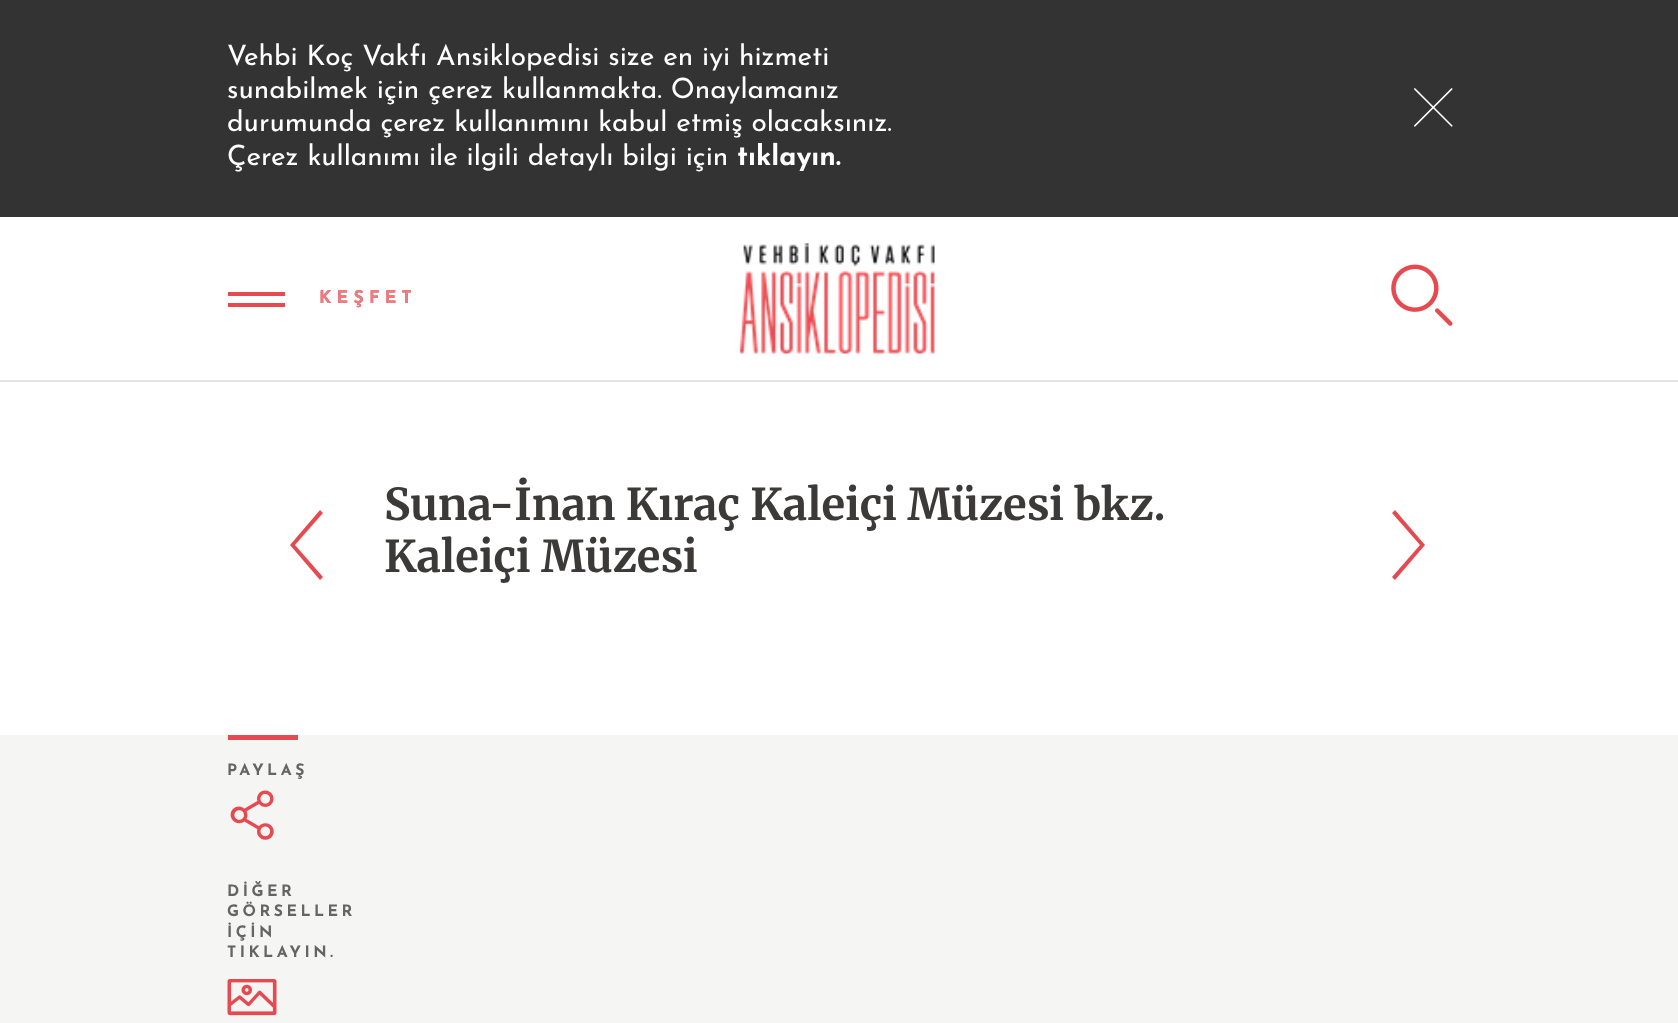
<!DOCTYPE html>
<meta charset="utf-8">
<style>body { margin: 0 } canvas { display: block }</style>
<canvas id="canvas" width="1678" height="1023"></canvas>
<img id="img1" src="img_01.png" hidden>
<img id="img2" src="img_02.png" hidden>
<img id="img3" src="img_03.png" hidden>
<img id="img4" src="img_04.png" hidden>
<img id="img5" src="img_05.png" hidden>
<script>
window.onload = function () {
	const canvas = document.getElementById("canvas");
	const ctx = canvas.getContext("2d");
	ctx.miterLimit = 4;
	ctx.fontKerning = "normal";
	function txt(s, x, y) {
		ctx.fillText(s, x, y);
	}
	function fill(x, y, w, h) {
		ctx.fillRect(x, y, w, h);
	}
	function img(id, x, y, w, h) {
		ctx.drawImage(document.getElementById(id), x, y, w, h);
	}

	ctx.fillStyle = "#F5F5F3";
	fill(0, 0, 1678, 1023);
	ctx.fillStyle = "#FFFFFF";
	fill(0, 217, 1678, 163);
	ctx.fillStyle = "#E4E4E4";
	fill(0, 380, 1678, 2);
	ctx.fillStyle = "#333333";
	fill(0, 0, 1678, 217);
	img("img1", 1414, 88, 39, 39);
	ctx.fillStyle = "#E54A50";
	fill(228, 292, 57, 4);
	fill(228, 303, 57, 4);
	img("img2", 740, 243, 195, 111);
	img("img3", 1391, 264, 62, 62);
	ctx.fillStyle = "#FFFFFF";
	fill(0, 382, 1678, 353);
	ctx.fillStyle = "#E54A50";
	ctx.beginPath();
	ctx.moveTo(320, 580);
	ctx.lineTo(323, 577);
	ctx.lineTo(295, 545);
	ctx.lineTo(323, 513);
	ctx.lineTo(320, 510);
	ctx.lineTo(290, 545);
	ctx.closePath();
	ctx.fill();
	ctx.beginPath();
	ctx.moveTo(1395, 580);
	ctx.lineTo(1392, 577);
	ctx.lineTo(1420, 545);
	ctx.lineTo(1392, 513);
	ctx.lineTo(1395, 510);
	ctx.lineTo(1425, 545);
	ctx.closePath();
	ctx.fill();
	fill(228, 735, 70, 5);
	img("img4", 230, 790, 44, 50);
	img("img5", 227, 979, 50, 37);
	ctx.font = "28px Josefin Sans";
	ctx.fillStyle = "#FFFFFF";
	txt("Vehbi Koç Vakfı Ansiklopedisi size en iyi hizmeti", 227, 65);
	txt("sunabilmek için çerez kullanmakta. Onaylamanız", 227, 98);
	txt("durumunda çerez kullanımını kabul etmiş olacaksınız.", 227, 131);
	txt("Çerez kullanımı ile ilgili detaylı bilgi için", 227, 165);
	ctx.font = "bold 28px Josefin Sans";
	txt("tıklayın.", 737, 165);
	ctx.letterSpacing = "5.25px";
	ctx.font = "bold 17.5px Josefin Sans";
	ctx.fillStyle = "#E54A50";
	txt("KEŞFET", 319, 303);
	ctx.fillStyle = "#EC7C80";
	txt("KEŞFET", 319, 303);
	ctx.letterSpacing = "0px";
	ctx.font = "bold 43.75px Merriweather";
	ctx.fillStyle = "#3B3A39";
	txt("Suna-İnan Kıraç Kaleiçi Müzesi bkz.", 384, 520);
	txt("Kaleiçi Müzesi", 384, 572);
	ctx.letterSpacing = "3.5px";
	ctx.font = "bold 15.75px Josefin Sans";
	ctx.fillStyle = "#646464";
	txt("PAYLAŞ", 227, 775);
	txt("DİĞER", 227, 896);
	txt("GÖRSELLER", 227, 916);
	txt("İÇİN", 227, 937);
	txt("TIKLAYIN.", 227, 957);
};
</script>
